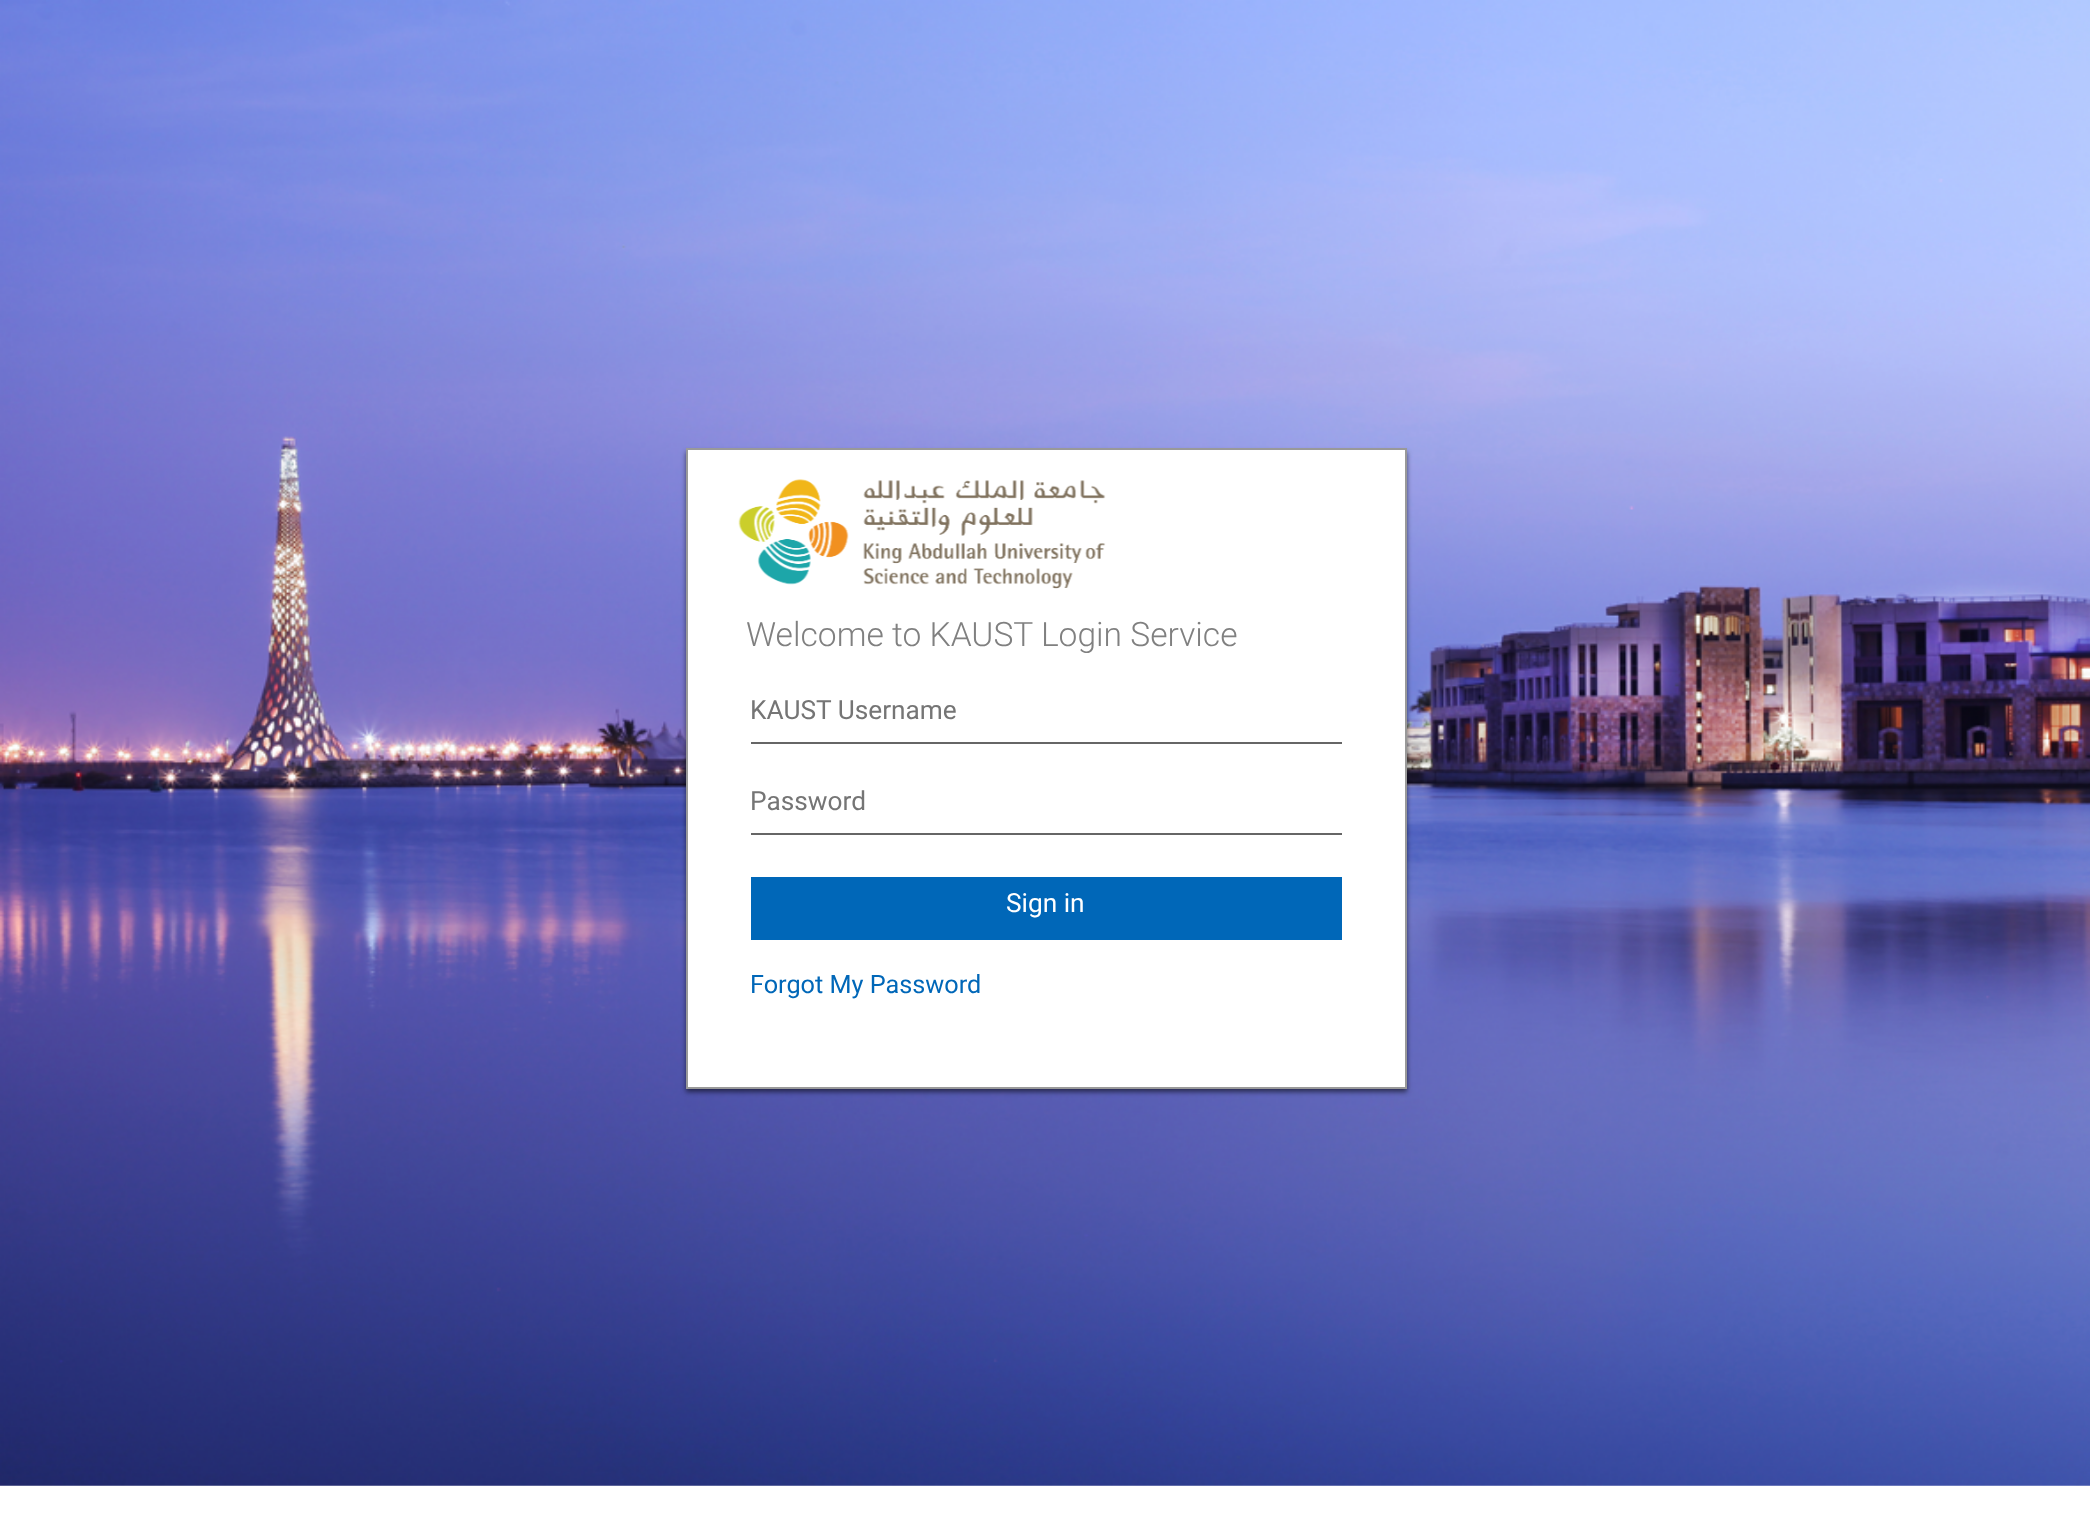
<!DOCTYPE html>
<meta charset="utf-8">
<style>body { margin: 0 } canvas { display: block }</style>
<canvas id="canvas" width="2090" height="1534"></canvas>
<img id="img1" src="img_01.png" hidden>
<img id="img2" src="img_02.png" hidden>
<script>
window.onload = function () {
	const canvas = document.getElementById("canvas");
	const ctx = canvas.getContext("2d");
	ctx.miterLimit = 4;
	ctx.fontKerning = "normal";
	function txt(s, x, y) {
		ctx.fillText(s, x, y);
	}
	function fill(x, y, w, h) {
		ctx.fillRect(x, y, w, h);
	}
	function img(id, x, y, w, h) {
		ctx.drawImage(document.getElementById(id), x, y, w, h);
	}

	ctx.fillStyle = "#FFFFFF";
	fill(0, 0, 2090, 1534);
	img("img1", 0, 0, 2090, 1486);
	ctx.fillStyle = "rgba(0, 0, 0, 0.55)";
	ctx.filter = "blur(2.5px)";
	ctx.beginPath();
	ctx.rect(686, 452, 721, 640);
	ctx.fill();
	ctx.filter = "none";
	ctx.fillStyle = "#FFFFFF";
	ctx.beginPath();
	ctx.rect(687, 449, 719, 639);
	ctx.fill();
	ctx.strokeStyle = "#999999";
	ctx.lineWidth = 2;
	ctx.stroke();
	img("img2", 738, 479, 368, 110);
	ctx.fillStyle = "#666666";
	fill(751, 742, 591, 2);
	fill(751, 833, 591, 2);
	ctx.fillStyle = "#0067B8";
	fill(751, 877, 591, 63);
	ctx.font = "300 33.6px Roboto";
	ctx.fillStyle = "#808080";
	txt("Welcome to KAUST Login Service", 746, 646);
	ctx.font = "26.25px Roboto";
	ctx.fillStyle = "#757575";
	txt("KAUST Username", 750, 719);
	txt("Password", 750, 810);
	ctx.fillStyle = "#FFFFFF";
	txt("Sign in", 1006, 912);
	ctx.font = "25.25px Roboto";
	ctx.fillStyle = "#0067B8";
	txt("Forgot My Password", 750, 993);
};
</script>
